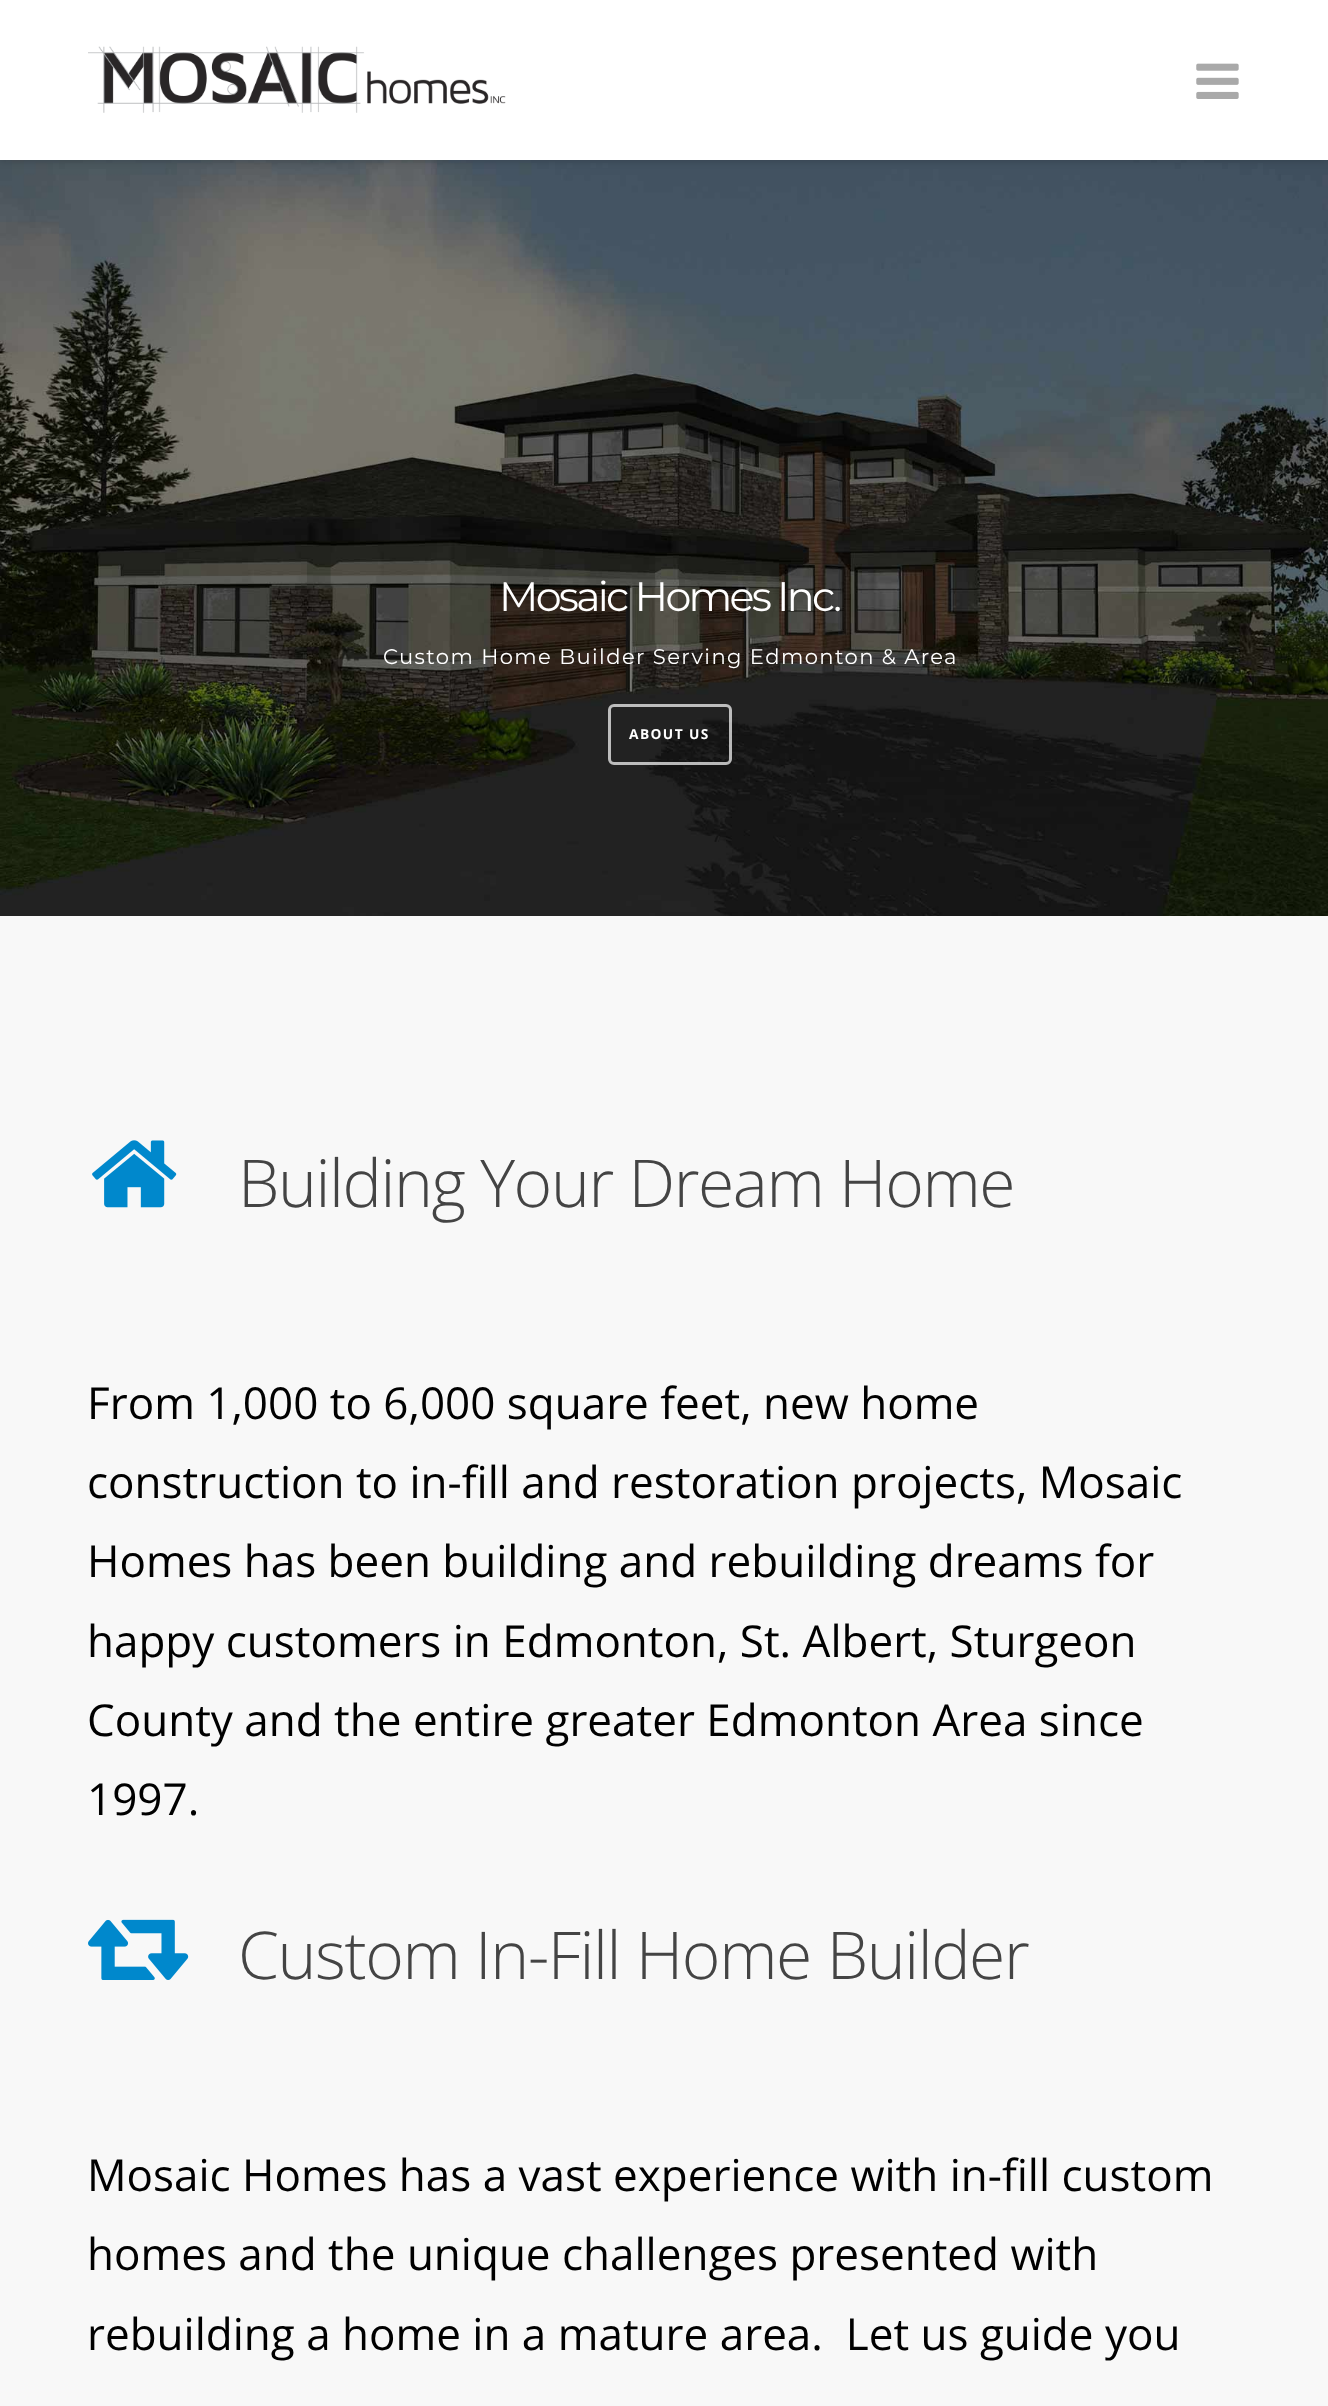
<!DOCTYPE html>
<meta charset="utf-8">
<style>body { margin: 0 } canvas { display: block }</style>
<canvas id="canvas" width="1328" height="2406"></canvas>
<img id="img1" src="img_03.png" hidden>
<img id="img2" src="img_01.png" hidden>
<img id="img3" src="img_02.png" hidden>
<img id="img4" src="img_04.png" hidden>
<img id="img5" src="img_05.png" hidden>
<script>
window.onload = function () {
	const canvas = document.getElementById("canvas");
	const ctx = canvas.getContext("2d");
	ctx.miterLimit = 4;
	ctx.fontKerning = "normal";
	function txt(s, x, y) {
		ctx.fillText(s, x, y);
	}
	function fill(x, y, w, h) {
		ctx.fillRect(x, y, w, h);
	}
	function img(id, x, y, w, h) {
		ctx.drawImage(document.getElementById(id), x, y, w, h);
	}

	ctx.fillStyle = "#FFFFFF";
	fill(0, 0, 1328, 2406);
	img("img1", 0, 160, 1328, 756);
	ctx.fillStyle = "rgba(0, 0, 0, 0.22)";
	ctx.filter = "blur(4px)";
	ctx.beginPath();
	ctx.rect(0, 0, 1328, 160);
	ctx.fill();
	ctx.filter = "none";
	ctx.fillStyle = "#FFFFFF";
	fill(0, 0, 1328, 160);
	img("img2", 88, 46, 418, 67);
	img("img3", 1196, 63, 43, 36);
	ctx.beginPath();
	ctx.roundRect(609.5, 705.5, 121, 58, 4.5);
	ctx.strokeStyle = "rgba(255, 255, 255, 0.7)";
	ctx.lineWidth = 3;
	ctx.stroke();
	ctx.fillStyle = "#F8F8F8";
	fill(0, 916, 1328, 1490);
	img("img4", 92, 1140, 85, 68);
	img("img5", 88, 1919, 101, 61);
	ctx.letterSpacing = "-2.75px";
	ctx.font = "100 41.25px Montserrat";
	ctx.fillStyle = "#FFFFFF";
	txt("Mosaic Homes Inc.", 499, 611);
	ctx.letterSpacing = "1.4px";
	ctx.font = "100 21.1px Montserrat";
	txt("Custom Home Builder Serving Edmonton & Area", 383, 664);
	ctx.font = "bold 13.75px Open Sans";
	txt("ABOUT US", 629, 739);
	ctx.letterSpacing = "-1.4px";
	ctx.font = "300 66px Open Sans";
	ctx.fillStyle = "#444444";
	txt("Building Your Dream Home", 238, 1207);
	ctx.letterSpacing = "0px";
	ctx.font = "44px Open Sans";
	ctx.fillStyle = "#000000";
	txt("From 1,000 to 6,000 square feet, new home", 87, 1419);
	txt("construction to in-fill and restoration projects, Mosaic", 87, 1498);
	txt("Homes has been building and rebuilding dreams for", 87, 1577);
	txt("happy customers in Edmonton, St. Albert, Sturgeon", 87, 1657);
	txt("County and the entire greater Edmonton Area since", 87, 1736);
	txt("1997.", 87, 1815);
	ctx.letterSpacing = "-1.4px";
	ctx.font = "300 66px Open Sans";
	ctx.fillStyle = "#444444";
	txt("Custom In-Fill Home Builder", 238, 1979);
	ctx.letterSpacing = "0px";
	ctx.font = "44px Open Sans";
	ctx.fillStyle = "#000000";
	txt("Mosaic Homes has a vast experience with in-fill custom", 87, 2191);
	txt("homes and the unique challenges presented with", 87, 2270);
	txt("rebuilding a home in a mature area.  Let us guide you", 87, 2350);
};
</script>
